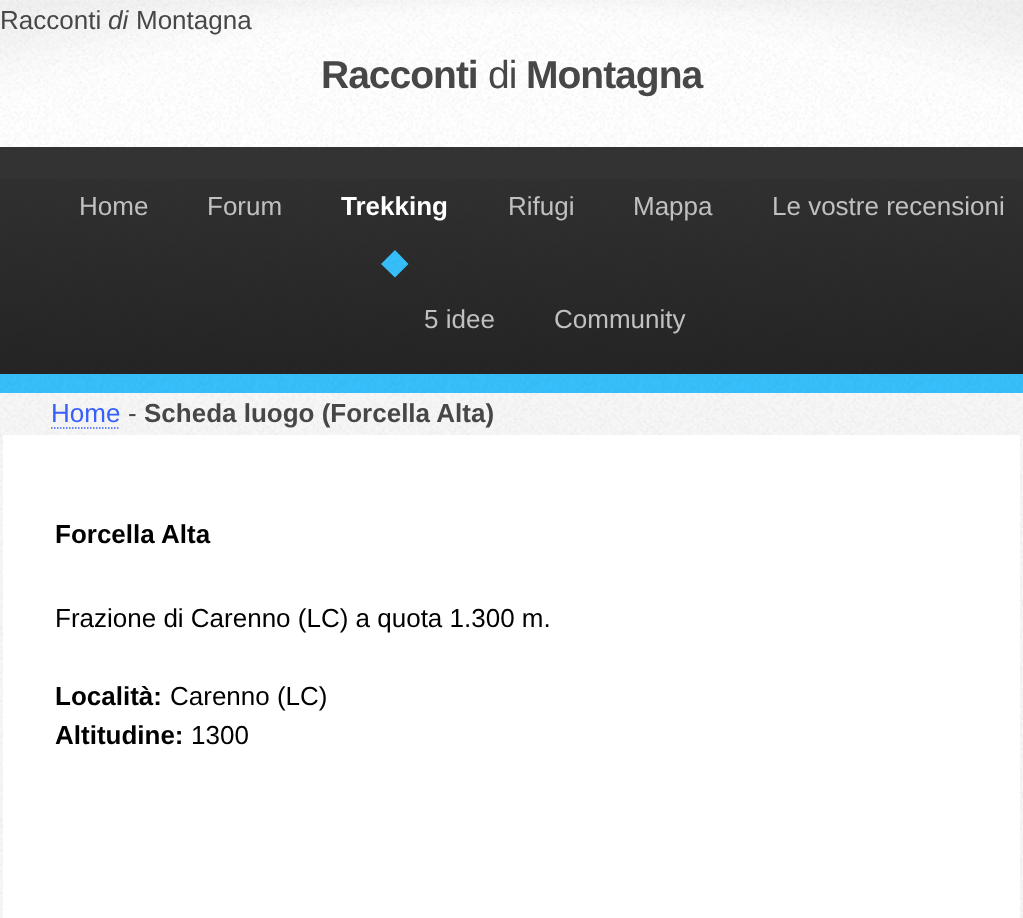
<!DOCTYPE html>
<meta charset="utf-8">
<style>body { margin: 0 } canvas { display: block }</style>
<canvas id="canvas" width="1023" height="918"></canvas>
<img id="img1" src="img_01.png" hidden>
<img id="img2" src="img_02.png" hidden>
<img id="img3" src="img_03.png" hidden>
<img id="img4" src="img_04.png" hidden>
<img id="img5" src="img_05.png" hidden>
<script>
window.onload = function () {
	const canvas = document.getElementById("canvas");
	const ctx = canvas.getContext("2d");
	ctx.miterLimit = 4;
	ctx.fontKerning = "normal";
	function txt(s, x, y) {
		ctx.fillText(s, x, y);
	}
	function fill(x, y, w, h) {
		ctx.fillRect(x, y, w, h);
	}
	function img(id, x, y, w, h) {
		ctx.drawImage(document.getElementById(id), x, y, w, h);
	}

	ctx.fillStyle = "#F7F7F7";
	fill(0, 0, 1023, 918);
	img("img1", 0, 393, 1023, 525);
	ctx.fillStyle = "#FFFFFF";
	fill(0, 0, 1023, 147);
	img("img2", 0, 0, 1023, 147);
	ctx.fillStyle = "#333333";
	fill(0, 147, 1023, 227);
	img("img3", 0, 179, 1023, 195);
	ctx.fillStyle = "#37C0FB";
	ctx.beginPath();
	ctx.moveTo(395, 250);
	ctx.lineTo(408.5, 264);
	ctx.lineTo(395, 277.5);
	ctx.lineTo(381, 264);
	ctx.closePath();
	ctx.fill();
	img("img4", 382, 251, 26, 23);
	fill(0, 374, 1023, 19);
	img("img5", 0, 374, 1023, 19);
	ctx.beginPath();
	ctx.moveTo(51, 428);
	ctx.lineTo(120, 428);
	ctx.strokeStyle = "#3760FB";
	ctx.lineWidth = 1.5;
	ctx.setLineDash([1.5, 1.5]);
	ctx.stroke();
	ctx.fillStyle = "#FFFFFF";
	fill(3, 435, 1017, 483);
	ctx.font = "26px Liberation Sans";
	ctx.fillStyle = "#474747";
	txt("Racconti", 0, 29);
	ctx.font = "italic 26px Liberation Sans";
	txt("di", 108, 29);
	ctx.font = "26px Liberation Sans";
	txt("Montagna", 136, 29);
	ctx.letterSpacing = "-1px";
	ctx.font = "bold 39px Liberation Sans";
	txt("Racconti", 321, 88);
	ctx.font = "39px Liberation Sans";
	txt("di", 488, 88);
	ctx.font = "bold 39px Liberation Sans";
	txt("Montagna", 526, 88);
	ctx.letterSpacing = "0px";
	ctx.font = "26px Liberation Sans";
	ctx.fillStyle = "#C0C0C0";
	txt("Home", 79, 215);
	txt("Forum", 207, 215);
	ctx.font = "bold 26px Liberation Sans";
	ctx.fillStyle = "#FFFFFF";
	txt("Trekking", 341, 215);
	ctx.font = "26px Liberation Sans";
	ctx.fillStyle = "#C0C0C0";
	txt("Rifugi", 508, 215);
	txt("Mappa", 633, 215);
	txt("Le vostre recensioni", 772, 215);
	txt("5 idee", 424, 328);
	txt("Community", 554, 328);
	ctx.fillStyle = "#3760FB";
	txt("Home", 51, 422);
	ctx.fillStyle = "#474747";
	txt("-", 128, 422);
	ctx.font = "bold 26px Liberation Sans";
	txt("Scheda luogo (Forcella Alta)", 144, 422);
	ctx.fillStyle = "#000000";
	txt("Forcella Alta", 55, 543);
	ctx.font = "26px Liberation Sans";
	txt("Frazione di Carenno (LC) a quota 1.300 m.", 55, 627);
	ctx.font = "bold 26px Liberation Sans";
	txt("Località:", 55, 705);
	ctx.font = "26px Liberation Sans";
	txt("Carenno (LC)", 170, 705);
	ctx.font = "bold 26px Liberation Sans";
	txt("Altitudine:", 55, 744);
	ctx.font = "26px Liberation Sans";
	txt("1300", 191, 744);
};
</script>
